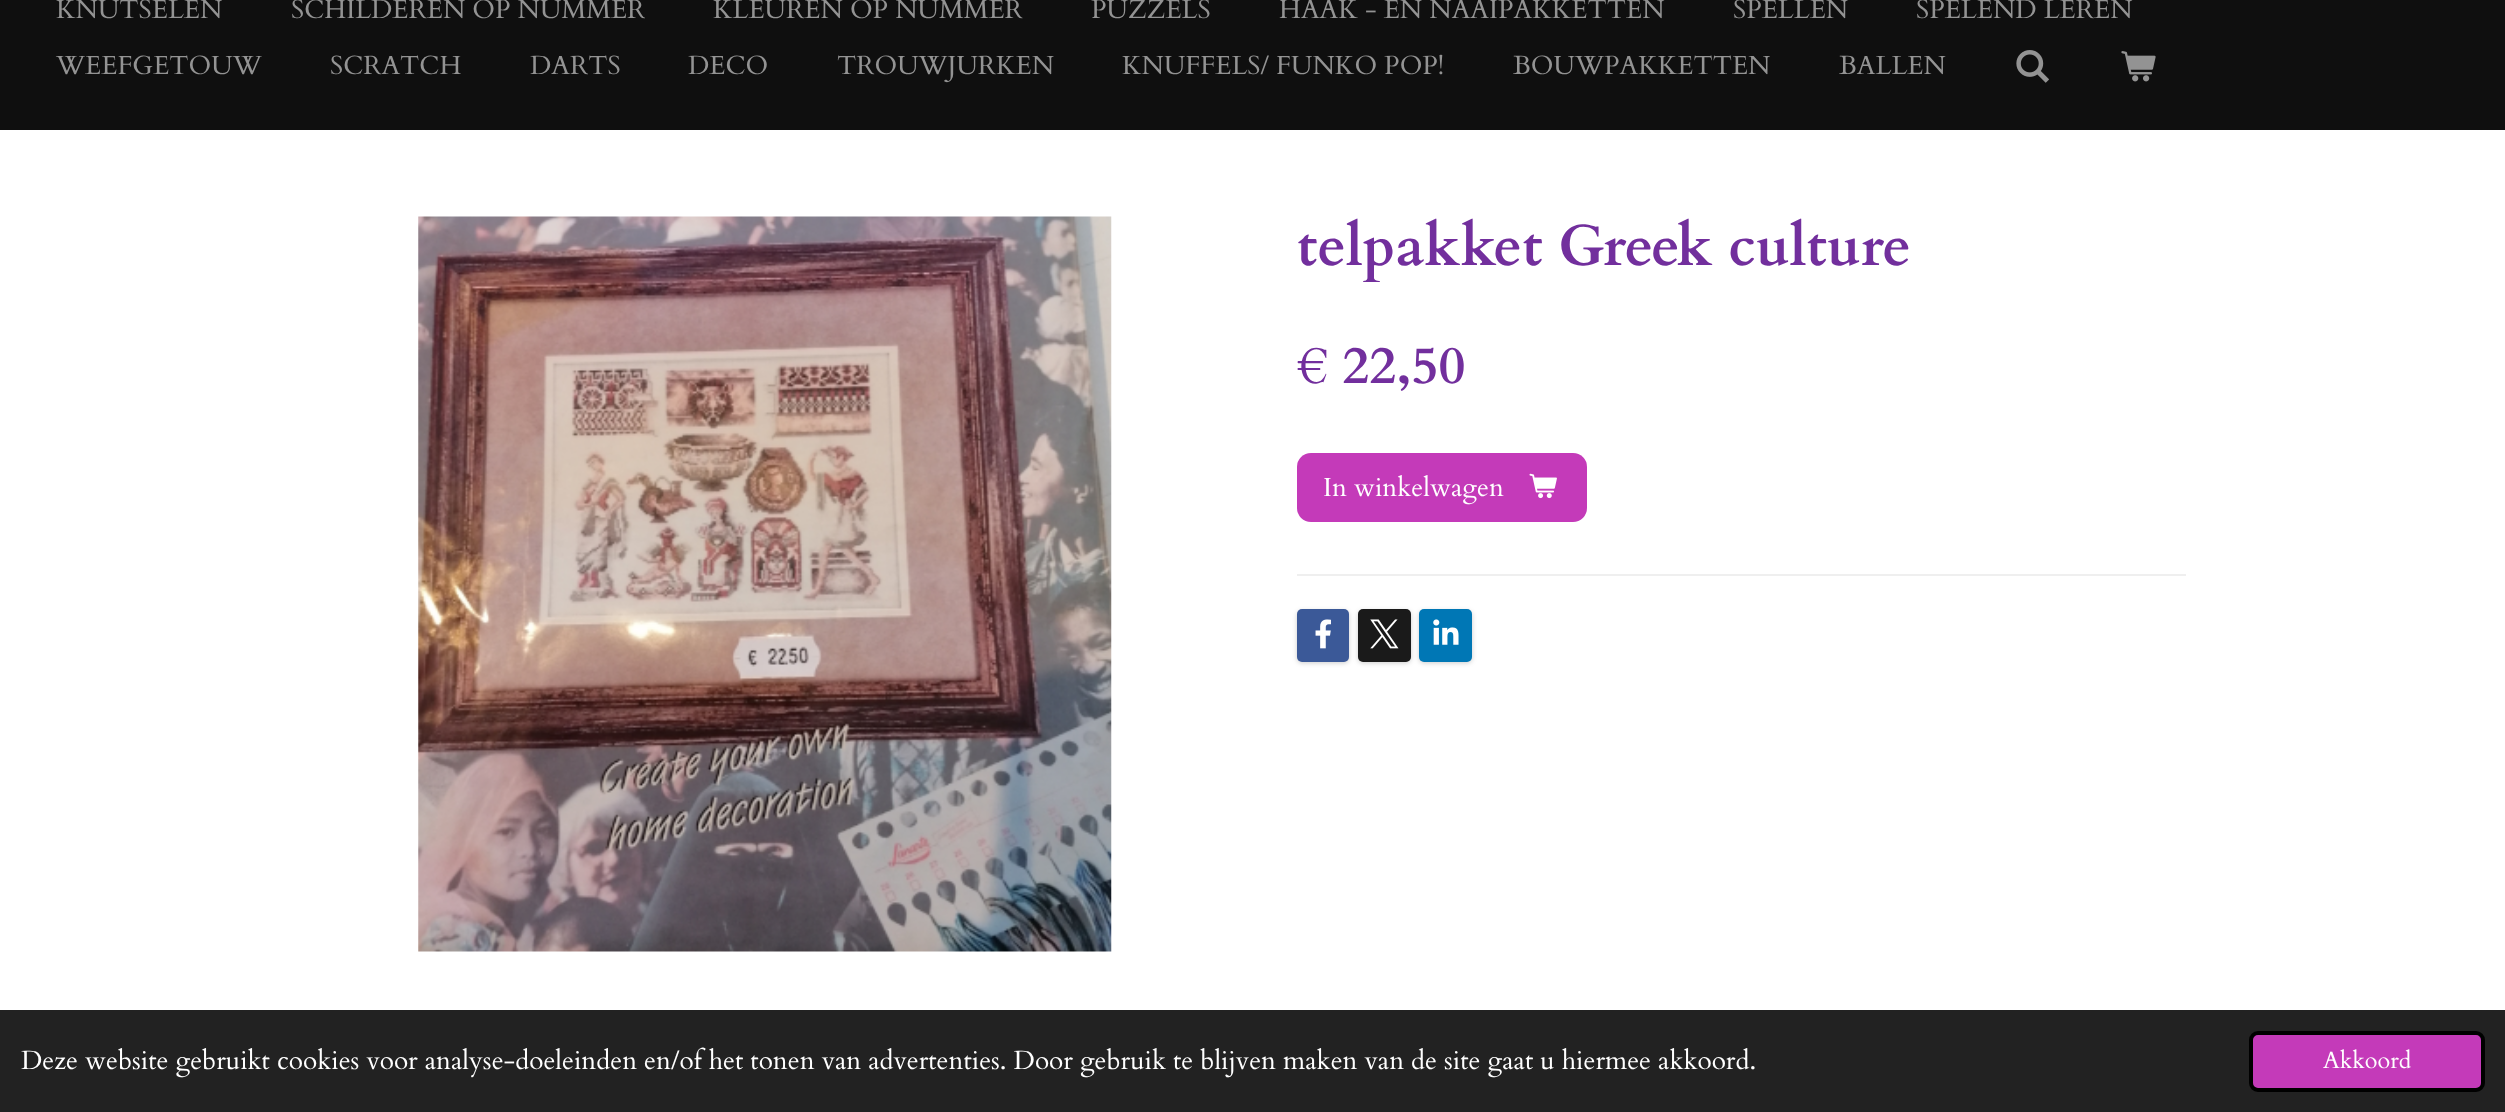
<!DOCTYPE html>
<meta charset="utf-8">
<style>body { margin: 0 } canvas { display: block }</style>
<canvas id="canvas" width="2505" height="1112"></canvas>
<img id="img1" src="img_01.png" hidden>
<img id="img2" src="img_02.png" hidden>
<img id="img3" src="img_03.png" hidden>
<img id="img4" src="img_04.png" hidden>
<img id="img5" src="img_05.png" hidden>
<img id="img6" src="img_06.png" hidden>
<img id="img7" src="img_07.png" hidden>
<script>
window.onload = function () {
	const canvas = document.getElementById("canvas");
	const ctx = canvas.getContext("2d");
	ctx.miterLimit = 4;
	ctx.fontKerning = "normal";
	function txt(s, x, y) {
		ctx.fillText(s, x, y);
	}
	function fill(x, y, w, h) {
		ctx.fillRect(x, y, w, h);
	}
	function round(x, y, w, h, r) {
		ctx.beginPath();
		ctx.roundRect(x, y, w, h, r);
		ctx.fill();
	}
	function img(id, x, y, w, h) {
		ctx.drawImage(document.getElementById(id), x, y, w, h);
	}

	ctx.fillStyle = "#0F0F0F";
	fill(0, 0, 2505, 1112);
	img("img1", 2016, 50, 33, 33);
	img("img2", 2121, 51, 35, 31);
	ctx.fillStyle = "#FFFFFF";
	fill(0, 130, 2505, 880);
	img("img3", 418, 216, 694, 736);
	ctx.fillStyle = "#C43AB9";
	round(1297, 453, 290, 69, 14);
	img("img4", 1529, 473, 28, 26);
	ctx.fillStyle = "#EFEFEF";
	fill(1297, 574, 889, 2);
	ctx.fillStyle = "rgba(0, 0, 0, 0.2)";
	ctx.filter = "blur(2.5px)";
	ctx.beginPath();
	ctx.roundRect(1297, 611, 52, 52, 5);
	ctx.fill();
	ctx.filter = "none";
	ctx.fillStyle = "#3B5998";
	round(1297, 609, 52, 53, 5);
	img("img5", 1315, 619, 16, 30);
	ctx.fillStyle = "rgba(0, 0, 0, 0.2)";
	ctx.filter = "blur(2.5px)";
	ctx.beginPath();
	ctx.roundRect(1358, 611, 53, 52, 5);
	ctx.fill();
	ctx.filter = "none";
	ctx.fillStyle = "#1A1A1A";
	round(1358, 609, 53, 53, 5);
	img("img6", 1370, 619, 29, 30);
	ctx.fillStyle = "rgba(0, 0, 0, 0.2)";
	ctx.filter = "blur(2.5px)";
	ctx.beginPath();
	ctx.roundRect(1419, 611, 53, 52, 5);
	ctx.fill();
	ctx.filter = "none";
	ctx.fillStyle = "#0077B5";
	round(1419, 609, 53, 53, 5);
	img("img7", 1433, 619, 26, 26);
	ctx.fillStyle = "#222222";
	fill(0, 1010, 2505, 102);
	ctx.fillStyle = "#C43AB9";
	ctx.beginPath();
	ctx.roundRect(2251, 1033, 232, 57, 7);
	ctx.fill();
	ctx.strokeStyle = "#000000";
	ctx.lineWidth = 4;
	ctx.stroke();
	ctx.font = "26.25px Cardo";
	ctx.fillStyle = "#939393";
	txt("KNUTSELEN", 56, 18);
	txt("SCHILDEREN OP NUMMER", 291, 18);
	txt("KLEUREN OP NUMMER", 713, 18);
	txt("PUZZELS", 1091, 18);
	txt("HAAK - EN NAAIPAKKETTEN", 1279, 18);
	txt("SPELLEN", 1733, 18);
	txt("SPELEND LEREN", 1916, 18);
	txt("WEEFGETOUW", 56, 74);
	txt("SCRATCH", 330, 74);
	txt("DARTS", 530, 74);
	txt("DECO", 688, 74);
	txt("TROUWJURKEN", 837, 74);
	txt("KNUFFELS/ FUNKO POP!", 1122, 74);
	txt("BOUWPAKKETTEN", 1513, 74);
	txt("BALLEN", 1839, 74);
	ctx.font = "bold 57.75px Cardo";
	ctx.fillStyle = "#722F9D";
	txt("telpakket Greek culture", 1297, 265);
	ctx.font = "bold 52.5px Cardo";
	txt("€ 22,50", 1297, 383);
	ctx.font = "26.25px Cardo";
	ctx.fillStyle = "#FFFFFF";
	txt("In winkelwagen", 1323, 496);
	txt("Deze website gebruikt cookies voor analyse-doeleinden en/of het tonen van advertenties. Door gebruik te blijven maken van de site gaat u hiermee akkoord.", 21, 1069);
	ctx.font = "23.5px Cardo";
	txt("Akkoord", 2323, 1068);
};
</script>
